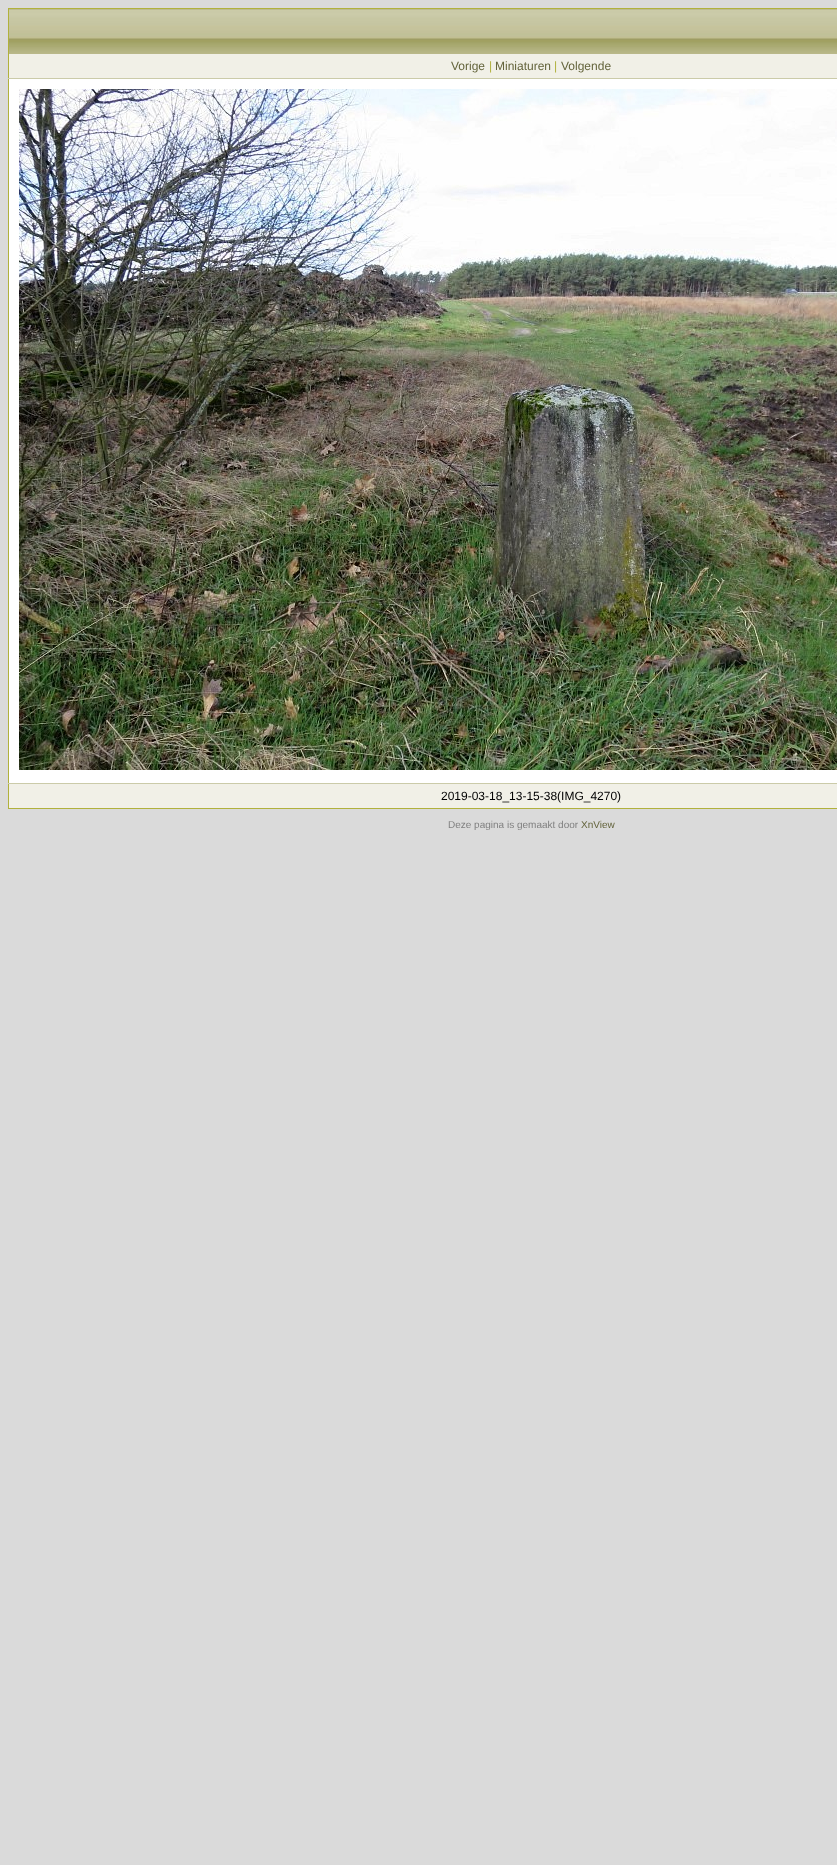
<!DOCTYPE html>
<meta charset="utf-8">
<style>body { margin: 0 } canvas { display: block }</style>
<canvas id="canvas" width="837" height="1865"></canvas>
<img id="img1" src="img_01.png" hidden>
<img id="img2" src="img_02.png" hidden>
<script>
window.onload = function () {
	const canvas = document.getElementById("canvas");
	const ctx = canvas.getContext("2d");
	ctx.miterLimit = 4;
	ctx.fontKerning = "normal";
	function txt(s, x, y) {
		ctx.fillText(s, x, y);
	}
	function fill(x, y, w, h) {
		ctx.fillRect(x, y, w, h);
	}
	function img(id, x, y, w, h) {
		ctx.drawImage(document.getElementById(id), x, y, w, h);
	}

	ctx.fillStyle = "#DADADA";
	fill(0, 0, 837, 1865);
	ctx.fillStyle = "#FFFFFF";
	fill(9, 79, 828, 704);
	ctx.fillStyle = "#B1B13C";
	fill(8, 8, 829, 1);
	fill(8, 808, 829, 1);
	fill(8, 8, 1, 801);
	img("img1", 9, 9, 828, 45);
	ctx.fillStyle = "#F1F0E7";
	fill(9, 54, 828, 24);
	ctx.fillStyle = "#CBCBA9";
	fill(8, 78, 829, 1);
	img("img2", 19, 89, 818, 681);
	ctx.fillStyle = "#F1F0E7";
	fill(9, 784, 828, 24);
	ctx.fillStyle = "#CBCBA9";
	fill(8, 783, 829, 1);
	ctx.font = "12px Liberation Sans";
	ctx.fillStyle = "#64643C";
	txt("Vorige", 451, 70);
	ctx.fillStyle = "#B1B13C";
	txt("|", 489, 70);
	ctx.fillStyle = "#64643C";
	txt("Miniaturen", 495, 70);
	ctx.fillStyle = "#B1B13C";
	txt("|", 554, 70);
	ctx.fillStyle = "#64643C";
	txt("Volgende", 561, 70);
	ctx.fillStyle = "#000000";
	txt("2019-03-18_13-15-38(IMG_4270)", 441, 800);
	ctx.font = "10px Liberation Sans";
	ctx.fillStyle = "#808080";
	txt("Deze pagina is gemaakt door", 448, 828);
	ctx.fillStyle = "#64643C";
	txt("XnView", 581, 828);
};
</script>
